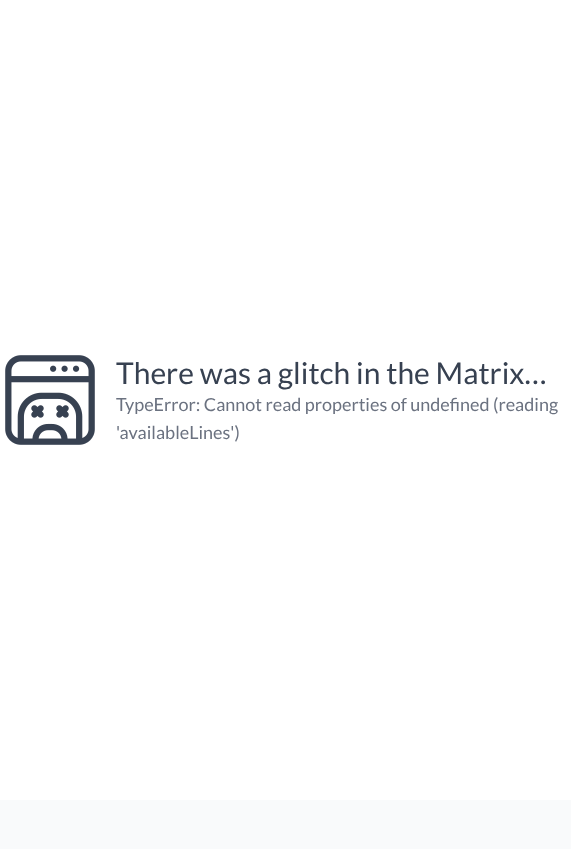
<!DOCTYPE html>
<meta charset="utf-8">
<style>body { margin: 0 } canvas { display: block }</style>
<canvas id="canvas" width="571" height="849"></canvas>
<img id="img1" src="img_01.png" hidden>
<script>
window.onload = function () {
	const canvas = document.getElementById("canvas");
	const ctx = canvas.getContext("2d");
	ctx.miterLimit = 4;
	ctx.fontKerning = "normal";
	function txt(s, x, y) {
		ctx.fillText(s, x, y);
	}
	function fill(x, y, w, h) {
		ctx.fillRect(x, y, w, h);
	}
	function img(id, x, y, w, h) {
		ctx.drawImage(document.getElementById(id), x, y, w, h);
	}

	ctx.fillStyle = "#F9FAFB";
	fill(0, 0, 571, 849);
	ctx.fillStyle = "#FFFFFF";
	fill(0, 0, 571, 800);
	img("img1", 5, 355, 90, 90);
	ctx.font = "30px Lato";
	ctx.fillStyle = "#374151";
	txt("There was a glitch in the Matrix…", 116, 384);
	ctx.font = "18px Lato";
	ctx.fillStyle = "#6B7280";
	txt("TypeError: Cannot read properties of undefined (reading", 116, 411);
	txt("'availableLines')", 116, 439);
};
</script>
